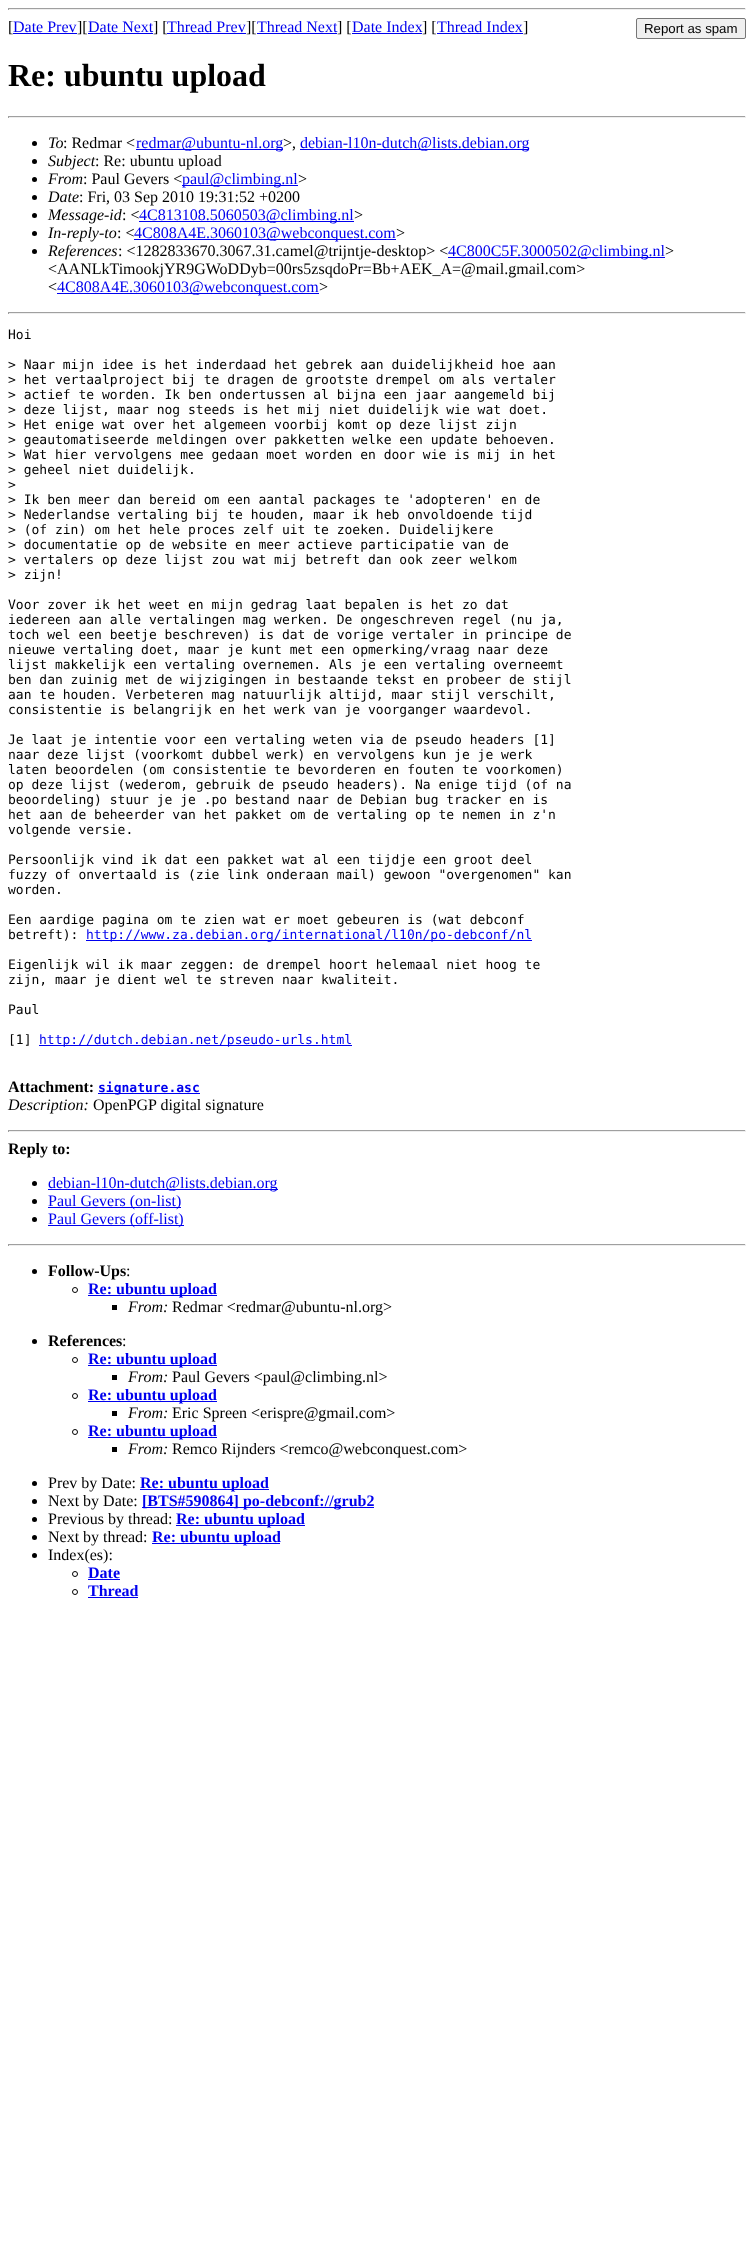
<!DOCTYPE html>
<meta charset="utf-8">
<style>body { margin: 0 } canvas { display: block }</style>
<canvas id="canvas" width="754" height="2251"></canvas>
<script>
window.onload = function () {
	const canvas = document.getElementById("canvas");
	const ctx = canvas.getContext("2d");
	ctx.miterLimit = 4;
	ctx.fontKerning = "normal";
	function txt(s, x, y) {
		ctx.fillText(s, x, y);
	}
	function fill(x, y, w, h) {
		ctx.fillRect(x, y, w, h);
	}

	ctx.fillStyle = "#FFFFFF";
	fill(0, 0, 754, 2251);
	ctx.fillStyle = "#9F9F9F";
	fill(8, 8, 738, 1);
	ctx.fillStyle = "#EEEEEE";
	fill(745, 8, 1, 2);
	fill(8, 9, 738, 1);
	ctx.fillStyle = "#9F9F9F";
	fill(8, 8, 1, 2);
	ctx.fillStyle = "#0000EE";
	fill(13, 33, 64, 1);
	fill(88, 33, 65, 1);
	fill(167, 33, 79, 1);
	fill(257, 33, 80, 1);
	fill(352, 33, 70, 1);
	fill(437, 33, 86, 1);
	ctx.fillStyle = "#EFEFEF";
	ctx.beginPath();
	ctx.roundRect(636.5, 18.5, 109, 20, 1.5);
	ctx.fill();
	ctx.strokeStyle = "#767676";
	ctx.stroke();
	ctx.fillStyle = "#9F9F9F";
	fill(8, 116, 738, 1);
	ctx.fillStyle = "#EEEEEE";
	fill(745, 116, 1, 2);
	fill(8, 117, 738, 1);
	ctx.fillStyle = "#9F9F9F";
	fill(8, 116, 1, 2);
	ctx.fillStyle = "#000000";
	ctx.beginPath();
	ctx.arc(34.5, 143.5, 2.5, 0, Math.PI * 2);
	ctx.fill();
	ctx.fillStyle = "#0000EE";
	fill(136, 149, 147, 1);
	fill(300, 149, 229, 1);
	ctx.fillStyle = "#000000";
	ctx.beginPath();
	ctx.arc(34.5, 161.5, 2.5, 0, Math.PI * 2);
	ctx.fill();
	ctx.beginPath();
	ctx.arc(34.5, 179.5, 2.5, 0, Math.PI * 2);
	ctx.fill();
	ctx.fillStyle = "#0000EE";
	fill(182, 185, 116, 1);
	ctx.fillStyle = "#000000";
	ctx.beginPath();
	ctx.arc(34.5, 197.5, 2.5, 0, Math.PI * 2);
	ctx.fill();
	ctx.beginPath();
	ctx.arc(34.5, 215.5, 2.5, 0, Math.PI * 2);
	ctx.fill();
	ctx.fillStyle = "#0000EE";
	fill(139, 221, 215, 1);
	ctx.fillStyle = "#000000";
	ctx.beginPath();
	ctx.arc(34.5, 233.5, 2.5, 0, Math.PI * 2);
	ctx.fill();
	ctx.fillStyle = "#0000EE";
	fill(134, 239, 262, 1);
	ctx.fillStyle = "#000000";
	ctx.beginPath();
	ctx.arc(34.5, 251.5, 2.5, 0, Math.PI * 2);
	ctx.fill();
	ctx.fillStyle = "#0000EE";
	fill(448, 257, 217, 1);
	fill(57, 293, 262, 1);
	ctx.fillStyle = "#9F9F9F";
	fill(8, 312, 738, 1);
	ctx.fillStyle = "#EEEEEE";
	fill(745, 312, 1, 2);
	fill(8, 313, 738, 1);
	ctx.fillStyle = "#9F9F9F";
	fill(8, 312, 1, 2);
	ctx.fillStyle = "#0000EE";
	fill(86, 940, 446, 1);
	fill(39, 1045, 313, 1);
	fill(98, 1093, 102, 1);
	ctx.fillStyle = "#9F9F9F";
	fill(8, 1130, 738, 1);
	ctx.fillStyle = "#EEEEEE";
	fill(745, 1130, 1, 2);
	fill(8, 1131, 738, 1);
	ctx.fillStyle = "#9F9F9F";
	fill(8, 1130, 1, 2);
	ctx.fillStyle = "#000000";
	ctx.beginPath();
	ctx.arc(34.5, 1183.5, 2.5, 0, Math.PI * 2);
	ctx.fill();
	ctx.fillStyle = "#0000EE";
	fill(48, 1189, 230, 1);
	ctx.fillStyle = "#000000";
	ctx.beginPath();
	ctx.arc(34.5, 1201.5, 2.5, 0, Math.PI * 2);
	ctx.fill();
	ctx.fillStyle = "#0000EE";
	fill(48, 1207, 133, 1);
	ctx.fillStyle = "#000000";
	ctx.beginPath();
	ctx.arc(34.5, 1219.5, 2.5, 0, Math.PI * 2);
	ctx.fill();
	ctx.fillStyle = "#0000EE";
	fill(48, 1225, 136, 1);
	ctx.fillStyle = "#9F9F9F";
	fill(8, 1244, 738, 1);
	ctx.fillStyle = "#EEEEEE";
	fill(745, 1244, 1, 2);
	fill(8, 1245, 738, 1);
	ctx.fillStyle = "#9F9F9F";
	fill(8, 1244, 1, 2);
	ctx.fillStyle = "#000000";
	ctx.beginPath();
	ctx.arc(34.5, 1271.5, 2.5, 0, Math.PI * 2);
	ctx.fill();
	ctx.beginPath();
	ctx.arc(75, 1290, 2.5, 0, Math.PI * 2);
	ctx.strokeStyle = "#000000";
	ctx.stroke();
	ctx.fillStyle = "#0000EE";
	fill(88, 1295, 129, 1);
	ctx.fillStyle = "#000000";
	fill(112, 1305, 5, 5);
	ctx.beginPath();
	ctx.arc(34.5, 1341.5, 2.5, 0, Math.PI * 2);
	ctx.fill();
	ctx.beginPath();
	ctx.arc(75, 1360, 2.5, 0, Math.PI * 2);
	ctx.stroke();
	ctx.fillStyle = "#0000EE";
	fill(88, 1365, 129, 1);
	ctx.fillStyle = "#000000";
	fill(112, 1375, 5, 5);
	ctx.beginPath();
	ctx.arc(75, 1396, 2.5, 0, Math.PI * 2);
	ctx.stroke();
	ctx.fillStyle = "#0000EE";
	fill(88, 1401, 129, 1);
	ctx.fillStyle = "#000000";
	fill(112, 1411, 5, 5);
	ctx.beginPath();
	ctx.arc(75, 1432, 2.5, 0, Math.PI * 2);
	ctx.stroke();
	ctx.fillStyle = "#0000EE";
	fill(88, 1437, 129, 1);
	ctx.fillStyle = "#000000";
	fill(112, 1447, 5, 5);
	ctx.beginPath();
	ctx.arc(34.5, 1483.5, 2.5, 0, Math.PI * 2);
	ctx.fill();
	ctx.fillStyle = "#0000EE";
	fill(140, 1489, 129, 1);
	ctx.fillStyle = "#000000";
	ctx.beginPath();
	ctx.arc(34.5, 1501.5, 2.5, 0, Math.PI * 2);
	ctx.fill();
	ctx.fillStyle = "#0000EE";
	fill(142, 1507, 232, 1);
	ctx.fillStyle = "#000000";
	ctx.beginPath();
	ctx.arc(34.5, 1519.5, 2.5, 0, Math.PI * 2);
	ctx.fill();
	ctx.fillStyle = "#0000EE";
	fill(176, 1525, 129, 1);
	ctx.fillStyle = "#000000";
	ctx.beginPath();
	ctx.arc(34.5, 1537.5, 2.5, 0, Math.PI * 2);
	ctx.fill();
	ctx.fillStyle = "#0000EE";
	fill(152, 1543, 128, 1);
	ctx.fillStyle = "#000000";
	ctx.beginPath();
	ctx.arc(34.5, 1555.5, 2.5, 0, Math.PI * 2);
	ctx.fill();
	ctx.beginPath();
	ctx.arc(75, 1574, 2.5, 0, Math.PI * 2);
	ctx.stroke();
	ctx.fillStyle = "#0000EE";
	fill(88, 1579, 32, 1);
	ctx.beginPath();
	ctx.arc(75, 1592, 2.5, 0, Math.PI * 2);
	ctx.stroke();
	fill(88, 1597, 50, 1);
	ctx.font = "16px Liberation Serif";
	ctx.fillStyle = "#000000";
	txt("[", 8, 32);
	ctx.fillStyle = "#0000EE";
	txt("Date Prev", 13, 32);
	ctx.fillStyle = "#000000";
	txt("][", 77, 32);
	ctx.fillStyle = "#0000EE";
	txt("Date Next", 88, 32);
	ctx.fillStyle = "#000000";
	txt("] [", 153, 32);
	ctx.fillStyle = "#0000EE";
	txt("Thread Prev", 167, 32);
	ctx.fillStyle = "#000000";
	txt("][", 246, 32);
	ctx.fillStyle = "#0000EE";
	txt("Thread Next", 257, 32);
	ctx.fillStyle = "#000000";
	txt("] [", 337, 32);
	ctx.fillStyle = "#0000EE";
	txt("Date Index", 352, 32);
	ctx.fillStyle = "#000000";
	txt("] [", 422, 32);
	ctx.fillStyle = "#0000EE";
	txt("Thread Index", 437, 32);
	ctx.fillStyle = "#000000";
	txt("]", 523, 32);
	ctx.font = "13.25px Liberation Sans";
	txt("Report as spam", 644, 33);
	ctx.font = "bold 32px Liberation Serif";
	txt("Re: ubuntu upload", 8, 86);
	ctx.font = "italic 16px Liberation Serif";
	txt("To", 48, 148);
	ctx.font = "16px Liberation Serif";
	txt(": Redmar <", 63, 148);
	ctx.fillStyle = "#0000EE";
	txt("redmar@ubuntu-nl.org", 136, 148);
	ctx.fillStyle = "#000000";
	txt(">,", 283, 148);
	ctx.fillStyle = "#0000EE";
	txt("debian-l10n-dutch@lists.debian.org", 300, 148);
	ctx.font = "italic 16px Liberation Serif";
	ctx.fillStyle = "#000000";
	txt("Subject", 48, 166);
	ctx.font = "16px Liberation Serif";
	txt(": Re: ubuntu upload", 95, 166);
	ctx.font = "italic 16px Liberation Serif";
	txt("From", 48, 184);
	ctx.font = "16px Liberation Serif";
	txt(": Paul Gevers <", 83, 184);
	ctx.fillStyle = "#0000EE";
	txt("paul@climbing.nl", 182, 184);
	ctx.fillStyle = "#000000";
	txt(">", 298, 184);
	ctx.font = "italic 16px Liberation Serif";
	txt("Date", 48, 202);
	ctx.font = "16px Liberation Serif";
	txt(": Fri, 03 Sep 2010 19:31:52 +0200", 79, 202);
	ctx.font = "italic 16px Liberation Serif";
	txt("Message-id", 48, 220);
	ctx.font = "16px Liberation Serif";
	txt(": <", 122, 220);
	ctx.fillStyle = "#0000EE";
	txt("4C813108.5060503@climbing.nl", 139, 220);
	ctx.fillStyle = "#000000";
	txt(">", 354, 220);
	ctx.font = "italic 16px Liberation Serif";
	txt("In-reply-to", 48, 238);
	ctx.font = "16px Liberation Serif";
	txt(": <", 117, 238);
	ctx.fillStyle = "#0000EE";
	txt("4C808A4E.3060103@webconquest.com", 134, 238);
	ctx.fillStyle = "#000000";
	txt(">", 396, 238);
	ctx.font = "italic 16px Liberation Serif";
	txt("References", 48, 256);
	ctx.font = "16px Liberation Serif";
	txt(": <1282833670.3067.31.camel@trijntje-desktop> <", 118, 256);
	ctx.fillStyle = "#0000EE";
	txt("4C800C5F.3000502@climbing.nl", 448, 256);
	ctx.fillStyle = "#000000";
	txt(">", 665, 256);
	txt("<AANLkTimookjYR9GWoDDyb=00rs5zsqdoPr=Bb+AEK_A=@mail.gmail.com>", 48, 274);
	txt("<", 48, 292);
	ctx.fillStyle = "#0000EE";
	txt("4C808A4E.3060103@webconquest.com", 57, 292);
	ctx.fillStyle = "#000000";
	txt(">", 319, 292);
	ctx.font = "13px DejaVu Sans Mono";
	txt("Hoi", 8, 339);
	txt("> Naar mijn idee is het inderdaad het gebrek aan duidelijkheid hoe aan", 8, 369);
	txt("> het vertaalproject bij te dragen de grootste drempel om als vertaler", 8, 384);
	txt("> actief te worden. Ik ben ondertussen al bijna een jaar aangemeld bij", 8, 399);
	txt("> deze lijst, maar nog steeds is het mij niet duidelijk wie wat doet.", 8, 414);
	txt("> Het enige wat over het algemeen voorbij komt op deze lijst zijn", 8, 429);
	txt("> geautomatiseerde meldingen over pakketten welke een update behoeven.", 8, 444);
	txt("> Wat hier vervolgens mee gedaan moet worden en door wie is mij in het", 8, 459);
	txt("> geheel niet duidelijk.", 8, 474);
	txt(">", 8, 489);
	txt("> Ik ben meer dan bereid om een aantal packages te 'adopteren' en de", 8, 504);
	txt("> Nederlandse vertaling bij te houden, maar ik heb onvoldoende tijd", 8, 519);
	txt("> (of zin) om het hele proces zelf uit te zoeken. Duidelijkere", 8, 534);
	txt("> documentatie op de website en meer actieve participatie van de", 8, 549);
	txt("> vertalers op deze lijst zou wat mij betreft dan ook zeer welkom", 8, 564);
	txt("> zijn!", 8, 579);
	txt("Voor zover ik het weet en mijn gedrag laat bepalen is het zo dat", 8, 609);
	txt("iedereen aan alle vertalingen mag werken. De ongeschreven regel (nu ja,", 8, 624);
	txt("toch wel een beetje beschreven) is dat de vorige vertaler in principe de", 8, 639);
	txt("nieuwe vertaling doet, maar je kunt met een opmerking/vraag naar deze", 8, 654);
	txt("lijst makkelijk een vertaling overnemen. Als je een vertaling overneemt", 8, 669);
	txt("ben dan zuinig met de wijzigingen in bestaande tekst en probeer de stijl", 8, 684);
	txt("aan te houden. Verbeteren mag natuurlijk altijd, maar stijl verschilt,", 8, 699);
	txt("consistentie is belangrijk en het werk van je voorganger waardevol.", 8, 714);
	txt("Je laat je intentie voor een vertaling weten via de pseudo headers [1]", 8, 744);
	txt("naar deze lijst (voorkomt dubbel werk) en vervolgens kun je je werk", 8, 759);
	txt("laten beoordelen (om consistentie te bevorderen en fouten te voorkomen)", 8, 774);
	txt("op deze lijst (wederom, gebruik de pseudo headers). Na enige tijd (of na", 8, 789);
	txt("beoordeling) stuur je je .po bestand naar de Debian bug tracker en is", 8, 804);
	txt("het aan de beheerder van het pakket om de vertaling op te nemen in z'n", 8, 819);
	txt("volgende versie.", 8, 834);
	txt("Persoonlijk vind ik dat een pakket wat al een tijdje een groot deel", 8, 864);
	txt("fuzzy of onvertaald is (zie link onderaan mail) gewoon \"overgenomen\" kan", 8, 879);
	txt("worden.", 8, 894);
	txt("Een aardige pagina om te zien wat er moet gebeuren is (wat debconf", 8, 924);
	txt("betreft):", 8, 939);
	ctx.fillStyle = "#0000EE";
	txt("http://www.za.debian.org/international/l10n/po-debconf/nl", 86, 939);
	ctx.fillStyle = "#000000";
	txt("Eigenlijk wil ik maar zeggen: de drempel hoort helemaal niet hoog te", 8, 969);
	txt("zijn, maar je dient wel te streven naar kwaliteit.", 8, 984);
	txt("Paul", 8, 1014);
	txt("[1]", 8, 1044);
	ctx.fillStyle = "#0000EE";
	txt("http://dutch.debian.net/pseudo-urls.html", 39, 1044);
	ctx.font = "bold 16px Liberation Serif";
	ctx.fillStyle = "#000000";
	txt("Attachment:", 8, 1092);
	ctx.font = "bold 13px DejaVu Sans Mono";
	ctx.fillStyle = "#0000EE";
	txt("signature.asc", 98, 1092);
	ctx.font = "italic 16px Liberation Serif";
	ctx.fillStyle = "#000000";
	txt("Description:", 8, 1110);
	ctx.font = "16px Liberation Serif";
	txt("OpenPGP digital signature", 93, 1110);
	ctx.font = "bold 16px Liberation Serif";
	txt("Reply to:", 8, 1154);
	ctx.font = "16px Liberation Serif";
	ctx.fillStyle = "#0000EE";
	txt("debian-l10n-dutch@lists.debian.org", 48, 1188);
	txt("Paul Gevers (on-list)", 48, 1206);
	txt("Paul Gevers (off-list)", 48, 1224);
	ctx.font = "bold 16px Liberation Serif";
	ctx.fillStyle = "#000000";
	txt("Follow-Ups", 48, 1276);
	ctx.font = "16px Liberation Serif";
	txt(":", 126, 1276);
	ctx.font = "bold 16px Liberation Serif";
	ctx.fillStyle = "#0000EE";
	txt("Re: ubuntu upload", 88, 1294);
	ctx.font = "italic 16px Liberation Serif";
	ctx.fillStyle = "#000000";
	txt("From:", 128, 1312);
	ctx.font = "16px Liberation Serif";
	txt("Redmar <redmar@ubuntu-nl.org>", 172, 1312);
	ctx.font = "bold 16px Liberation Serif";
	txt("References", 48, 1346);
	ctx.font = "16px Liberation Serif";
	txt(":", 122, 1346);
	ctx.font = "bold 16px Liberation Serif";
	ctx.fillStyle = "#0000EE";
	txt("Re: ubuntu upload", 88, 1364);
	ctx.font = "italic 16px Liberation Serif";
	ctx.fillStyle = "#000000";
	txt("From:", 128, 1382);
	ctx.font = "16px Liberation Serif";
	txt("Paul Gevers <paul@climbing.nl>", 172, 1382);
	ctx.font = "bold 16px Liberation Serif";
	ctx.fillStyle = "#0000EE";
	txt("Re: ubuntu upload", 88, 1400);
	ctx.font = "italic 16px Liberation Serif";
	ctx.fillStyle = "#000000";
	txt("From:", 128, 1418);
	ctx.font = "16px Liberation Serif";
	txt("Eric Spreen <erispre@gmail.com>", 172, 1418);
	ctx.font = "bold 16px Liberation Serif";
	ctx.fillStyle = "#0000EE";
	txt("Re: ubuntu upload", 88, 1436);
	ctx.font = "italic 16px Liberation Serif";
	ctx.fillStyle = "#000000";
	txt("From:", 128, 1454);
	ctx.font = "16px Liberation Serif";
	txt("Remco Rijnders <remco@webconquest.com>", 172, 1454);
	txt("Prev by Date:", 48, 1488);
	ctx.font = "bold 16px Liberation Serif";
	ctx.fillStyle = "#0000EE";
	txt("Re: ubuntu upload", 140, 1488);
	ctx.font = "16px Liberation Serif";
	ctx.fillStyle = "#000000";
	txt("Next by Date:", 48, 1506);
	ctx.font = "bold 16px Liberation Serif";
	ctx.fillStyle = "#0000EE";
	txt("[BTS#590864] po-debconf://grub2", 142, 1506);
	ctx.font = "16px Liberation Serif";
	ctx.fillStyle = "#000000";
	txt("Previous by thread:", 48, 1524);
	ctx.font = "bold 16px Liberation Serif";
	ctx.fillStyle = "#0000EE";
	txt("Re: ubuntu upload", 176, 1524);
	ctx.font = "16px Liberation Serif";
	ctx.fillStyle = "#000000";
	txt("Next by thread:", 48, 1542);
	ctx.font = "bold 16px Liberation Serif";
	ctx.fillStyle = "#0000EE";
	txt("Re: ubuntu upload", 152, 1542);
	ctx.font = "16px Liberation Serif";
	ctx.fillStyle = "#000000";
	txt("Index(es):", 48, 1560);
	ctx.font = "bold 16px Liberation Serif";
	ctx.fillStyle = "#0000EE";
	txt("Date", 88, 1578);
	txt("Thread", 88, 1596);
};
</script>
